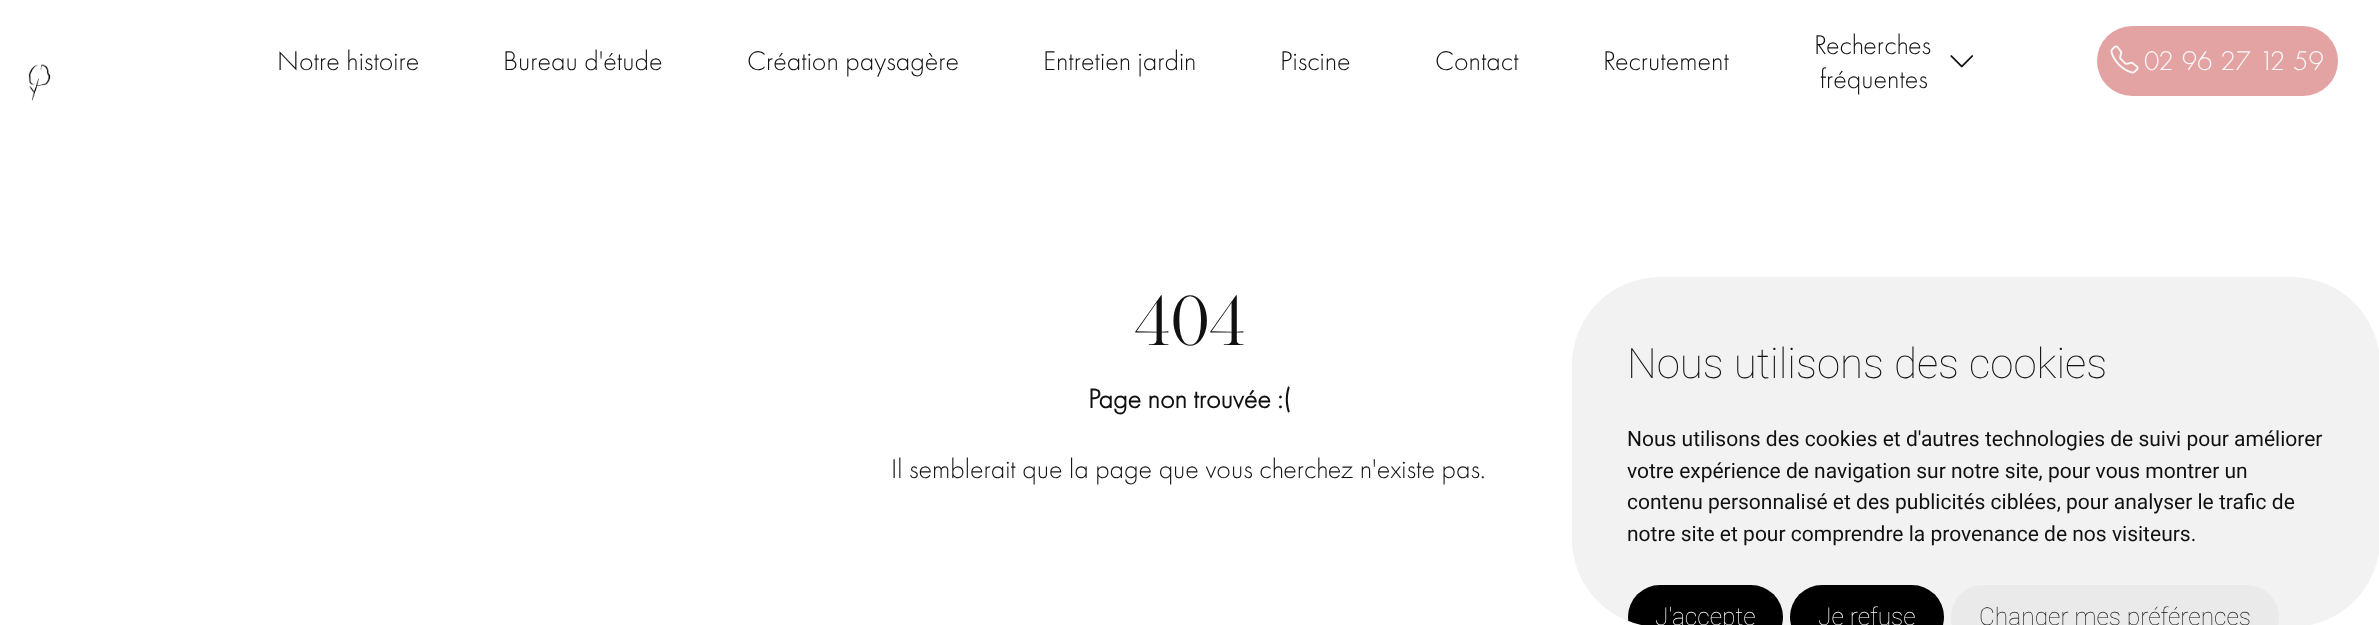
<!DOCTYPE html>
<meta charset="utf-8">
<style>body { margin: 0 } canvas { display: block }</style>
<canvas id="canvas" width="2379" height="625"></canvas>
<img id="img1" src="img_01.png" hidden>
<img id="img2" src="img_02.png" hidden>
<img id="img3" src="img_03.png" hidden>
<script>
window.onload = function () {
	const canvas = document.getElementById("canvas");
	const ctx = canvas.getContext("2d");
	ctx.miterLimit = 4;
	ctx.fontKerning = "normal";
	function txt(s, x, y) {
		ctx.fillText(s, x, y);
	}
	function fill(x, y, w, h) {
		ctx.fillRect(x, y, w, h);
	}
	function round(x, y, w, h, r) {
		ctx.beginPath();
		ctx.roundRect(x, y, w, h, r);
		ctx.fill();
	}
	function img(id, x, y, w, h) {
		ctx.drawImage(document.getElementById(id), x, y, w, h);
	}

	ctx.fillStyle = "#FFFFFF";
	fill(0, 0, 2379, 625);
	img("img1", 28, 64, 23, 37);
	img("img2", 1950, 55, 24, 13);
	ctx.fillStyle = "#E4A3A3";
	round(2097, 26, 241, 70, 35);
	img("img3", 2110, 45, 29, 29);
	ctx.fillStyle = "#F2F2F2";
	round(1572, 277, 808, 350, 88);
	ctx.save();
	ctx.beginPath();
	ctx.roundRect(1572, 277, 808, 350, 88);
	ctx.clip();
	ctx.fillStyle = "#000000";
	round(1628, 585, 155, 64, 32);
	ctx.restore();
	ctx.fillStyle = "#000000";
	round(1790, 585, 154, 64, 32);
	ctx.fillStyle = "#EAEAEA";
	round(1951, 585, 328, 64, 32);
	ctx.font = "300 28px Futura PT";
	ctx.fillStyle = "#111111";
	txt("Notre histoire", 277, 70);
	txt("Bureau d'étude", 503, 70);
	txt("Création paysagère", 747, 70);
	txt("Entretien jardin", 1043, 70);
	txt("Piscine", 1280, 70);
	txt("Contact", 1435, 70);
	txt("Recrutement", 1603, 70);
	txt("Recherches", 1814, 54);
	txt("fréquentes", 1820, 88);
	ctx.wordSpacing = "1.5px";
	ctx.fillStyle = "#F8F8F8";
	txt("02 96 27 12 59", 2144, 70);
	ctx.wordSpacing = "0px";
	ctx.font = "70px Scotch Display";
	ctx.fillStyle = "#111111";
	txt("404", 1135, 345);
	ctx.font = "bold 28px Futura PT";
	txt("Page non trouvée :(", 1088, 408);
	ctx.font = "300 28px Futura PT";
	txt("Il semblerait que la page que vous cherchez n'existe pas.", 891, 478);
	ctx.font = "100 42px Roboto";
	txt("Nous utilisons des cookies", 1627, 378);
	ctx.font = "21px Roboto";
	txt("Nous utilisons des cookies et d'autres technologies de suivi pour améliorer", 1627, 446);
	txt("votre expérience de navigation sur notre site, pour vous montrer un", 1627, 478);
	txt("contenu personnalisé et des publicités ciblées, pour analyser le trafic de", 1627, 509);
	txt("notre site et pour comprendre la provenance de nos visiteurs.", 1627, 541);
	ctx.font = "100 24.5px Roboto";
	ctx.fillStyle = "#FFFFFF";
	txt("J'accepte", 1655, 625);
	txt("Je refuse", 1818, 625);
	ctx.fillStyle = "#111111";
	txt("Changer mes préférences", 1979, 625);
};
</script>
